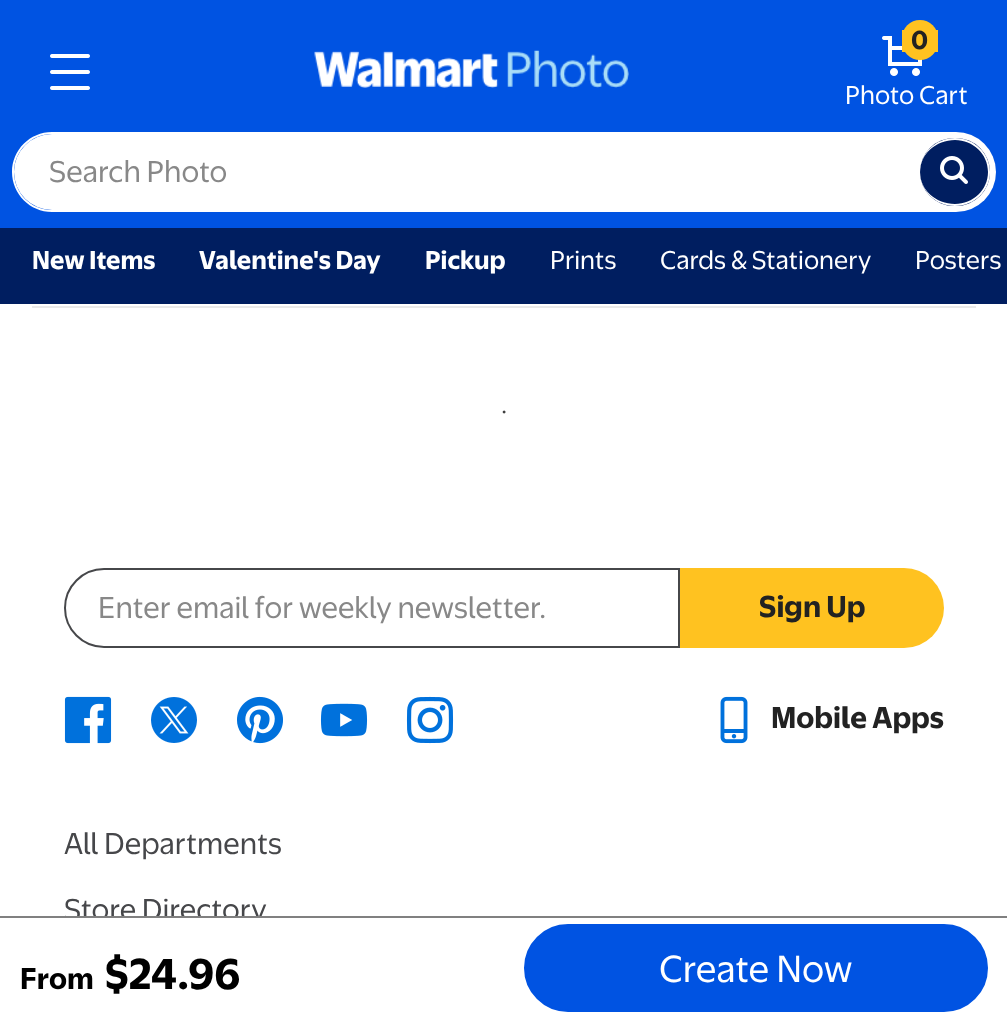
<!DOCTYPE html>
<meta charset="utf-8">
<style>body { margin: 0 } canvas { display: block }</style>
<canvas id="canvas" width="1007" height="1017"></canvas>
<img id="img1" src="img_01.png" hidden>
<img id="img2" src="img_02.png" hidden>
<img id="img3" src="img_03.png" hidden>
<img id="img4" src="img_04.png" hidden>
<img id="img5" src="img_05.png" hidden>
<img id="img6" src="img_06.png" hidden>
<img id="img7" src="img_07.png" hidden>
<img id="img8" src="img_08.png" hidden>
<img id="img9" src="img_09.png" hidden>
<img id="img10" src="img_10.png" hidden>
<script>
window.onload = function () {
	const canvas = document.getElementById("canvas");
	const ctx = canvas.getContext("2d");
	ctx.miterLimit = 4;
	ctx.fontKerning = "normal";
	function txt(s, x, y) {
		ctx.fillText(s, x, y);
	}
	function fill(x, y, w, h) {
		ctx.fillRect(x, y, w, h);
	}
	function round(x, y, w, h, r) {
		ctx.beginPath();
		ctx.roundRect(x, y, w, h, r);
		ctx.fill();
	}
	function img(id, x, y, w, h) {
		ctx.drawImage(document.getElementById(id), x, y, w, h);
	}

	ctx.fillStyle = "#FFFFFF";
	fill(0, 0, 1007, 1017);
	ctx.fillStyle = "#0053E2";
	fill(0, 0, 1007, 228);
	img("img1", 50, 54, 40, 36);
	img("img2", 314, 50, 315, 38);
	img("img3", 882, 36, 40, 40);
	ctx.fillStyle = "#FFC220";
	round(902, 20, 36, 40, 18);
	fill(935, 30, 3, 22);
	fill(902, 30, 3, 22);
	ctx.fillStyle = "#FFFFFF";
	ctx.beginPath();
	ctx.roundRect(14, 134, 906, 76, [38, 0, 0, 38]);
	ctx.fill();
	ctx.beginPath();
	ctx.moveTo(52, 132);
	ctx.lineTo(920, 132);
	ctx.lineTo(920, 212);
	ctx.lineTo(52, 212);
	ctx.bezierCurveTo(30, 212, 12, 194, 12, 172);
	ctx.bezierCurveTo(12, 150, 30, 132, 52, 132);
	ctx.closePath();
	ctx.moveTo(52, 134);
	ctx.lineTo(920, 134);
	ctx.lineTo(920, 210);
	ctx.lineTo(52, 210);
	ctx.bezierCurveTo(31, 210, 14, 193, 14, 172);
	ctx.bezierCurveTo(14, 151, 31, 134, 52, 134);
	ctx.closePath();
	ctx.fill("evenodd");
	ctx.beginPath();
	ctx.roundRect(920, 132, 76, 80, [0, 40, 40, 0]);
	ctx.fill();
	ctx.fillStyle = "#001E60";
	round(920, 138, 70, 68, 34);
	ctx.fillStyle = "#FFFFFF";
	ctx.beginPath();
	ctx.moveTo(955, 138);
	ctx.bezierCurveTo(974, 138, 990, 153, 990, 172);
	ctx.bezierCurveTo(990, 191, 974, 206, 955, 206);
	ctx.bezierCurveTo(936, 206, 920, 191, 920, 172);
	ctx.bezierCurveTo(920, 153, 936, 138, 955, 138);
	ctx.closePath();
	ctx.moveTo(955, 140);
	ctx.bezierCurveTo(973, 140, 988, 154, 988, 172);
	ctx.bezierCurveTo(988, 190, 973, 204, 955, 204);
	ctx.bezierCurveTo(936, 204, 920, 190, 920, 172);
	ctx.bezierCurveTo(920, 154, 936, 140, 955, 140);
	ctx.closePath();
	ctx.fill("evenodd");
	img("img4", 940, 156, 28, 28);
	ctx.fillStyle = "#001E60";
	fill(0, 228, 1007, 76);
	ctx.fillStyle = "#E9E9E9";
	fill(32, 306, 944, 2);
	ctx.fillStyle = "#0053E2";
	ctx.beginPath();
	ctx.roundRect(525, 925, 462, 86, 43);
	ctx.fill();
	ctx.strokeStyle = "#0053E2";
	ctx.lineWidth = 2;
	ctx.stroke();
	ctx.beginPath();
	ctx.roundRect(65, 569, 614, 78, [39, 0, 0, 39]);
	ctx.strokeStyle = "#46474A";
	ctx.stroke();
	ctx.fillStyle = "#FFC220";
	ctx.beginPath();
	ctx.roundRect(680, 568, 264, 80, [0, 40, 40, 0]);
	ctx.fill();
	img("img5", 64, 696, 48, 48);
	img("img6", 151, 697, 46, 46);
	img("img7", 237, 696, 46, 48);
	img("img8", 320, 703, 48, 34);
	img("img9", 406, 696, 48, 48);
	img("img10", 720, 696, 28, 48);
	ctx.font = "bold 24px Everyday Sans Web";
	ctx.fillStyle = "#222222";
	txt("0", 911, 49);
	ctx.font = "24px Everyday Sans Web";
	ctx.fillStyle = "#FFFFFF";
	txt("Photo Cart", 845, 104);
	ctx.font = "28px Everyday Sans Web";
	ctx.fillStyle = "#888888";
	txt("Search Photo", 49, 182);
	ctx.font = "bold 24px Everyday Sans Web";
	ctx.fillStyle = "#FFFFFF";
	txt("New Items", 32, 269);
	txt("Valentine's Day", 199, 269);
	txt("Pickup", 425, 269);
	ctx.font = "24px Everyday Sans Web";
	txt("Prints", 550, 269);
	txt("Cards & Stationery", 660, 269);
	txt("Posters", 915, 269);
	ctx.font = "12px Liberation Serif";
	ctx.fillStyle = "#404040";
	txt("•", 502, 416);
	ctx.font = "bold 28px Everyday Sans Web";
	ctx.fillStyle = "#000000";
	txt("From", 20, 989);
	ctx.font = "bold 40px Everyday Sans Web";
	txt("$24.", 105, 989);
	txt("96", 188, 989);
	ctx.font = "35px Everyday Sans Web";
	ctx.fillStyle = "#FFFFFF";
	txt("Create Now", 659, 982);
	ctx.font = "28px Everyday Sans Web";
	ctx.fillStyle = "#888888";
	txt("Enter email for weekly newsletter.", 98, 618);
	ctx.font = "bold 28px Everyday Sans Web";
	ctx.fillStyle = "#222222";
	txt("Sign Up", 759, 617);
	txt("Mobile Apps", 771, 728);
	ctx.font = "28px Everyday Sans Web";
	ctx.fillStyle = "#46474A";
	txt("All Departments", 64, 854);
	txt("Store Directory", 64, 920);
	ctx.fillStyle = "#808080";
	fill(0, 916, 1007, 2);
	ctx.fillStyle = "#FFFFFF";
	fill(65, 918, 196, 8);
};
</script>
